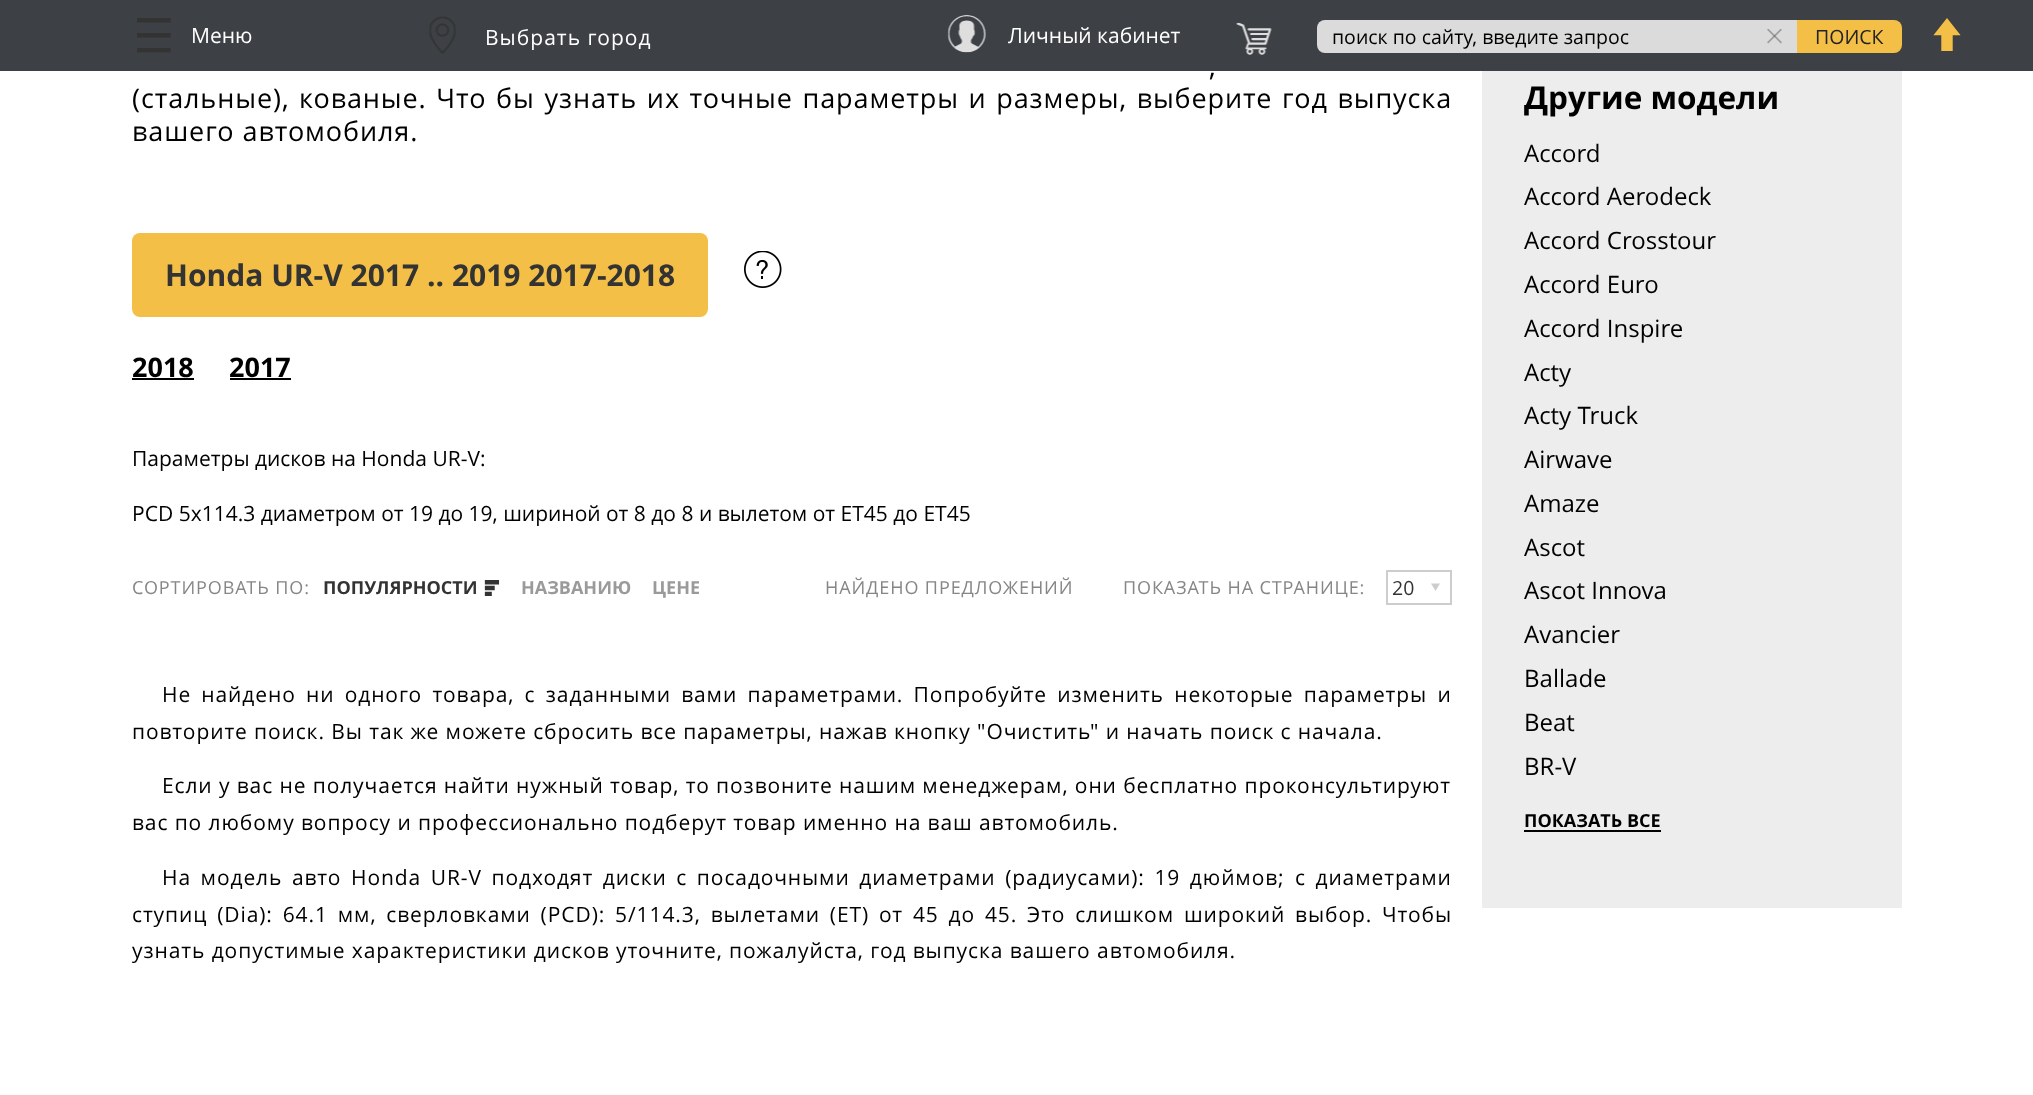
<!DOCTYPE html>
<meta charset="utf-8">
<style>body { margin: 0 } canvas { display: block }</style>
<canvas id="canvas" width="2033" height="1095"></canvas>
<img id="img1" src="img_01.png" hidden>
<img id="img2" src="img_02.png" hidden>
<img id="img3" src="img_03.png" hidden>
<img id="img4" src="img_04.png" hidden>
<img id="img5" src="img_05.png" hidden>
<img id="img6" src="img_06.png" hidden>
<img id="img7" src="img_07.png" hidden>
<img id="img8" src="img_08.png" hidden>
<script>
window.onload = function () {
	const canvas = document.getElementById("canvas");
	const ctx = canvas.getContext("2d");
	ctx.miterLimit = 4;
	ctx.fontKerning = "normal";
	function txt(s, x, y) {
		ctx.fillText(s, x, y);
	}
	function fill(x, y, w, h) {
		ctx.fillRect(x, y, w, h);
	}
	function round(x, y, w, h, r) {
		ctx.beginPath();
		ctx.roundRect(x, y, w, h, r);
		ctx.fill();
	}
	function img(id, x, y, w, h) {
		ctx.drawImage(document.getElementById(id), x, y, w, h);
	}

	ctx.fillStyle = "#FFFFFF";
	fill(0, 0, 2033, 1095);
	ctx.fillStyle = "#3D4044";
	fill(0, 0, 2033, 71);
	img("img1", 137, 18, 34, 35);
	img("img2", 429, 16, 27, 38);
	img("img3", 947, 15, 39, 38);
	img("img4", 1236, 22, 36, 33);
	ctx.fillStyle = "#DBDBDB";
	round(1317, 20, 543, 33, 8);
	img("img5", 1767, 29, 15, 15);
	ctx.fillStyle = "#F4BF46";
	ctx.beginPath();
	ctx.roundRect(1797, 20, 105, 33, [0, 8, 8, 0]);
	ctx.fill();
	img("img6", 1933, 18, 28, 33);
	round(132, 233, 576, 84, 8);
	img("img7", 744, 251, 38, 37);
	ctx.fillStyle = "#000000";
	fill(132, 378, 62, 2);
	fill(230, 378, 61, 2);
	img("img8", 484, 580, 16, 16);
	ctx.strokeStyle = "#CDCDCD";
	ctx.lineWidth = 2;
	ctx.strokeRect(1387, 571, 64, 33);
	ctx.fillStyle = "#CDCDCD";
	ctx.beginPath();
	ctx.moveTo(1431, 583.5);
	ctx.lineTo(1440, 583.5);
	ctx.lineTo(1435.5, 591);
	ctx.closePath();
	ctx.fill();
	ctx.fillStyle = "#EDEDED";
	fill(1482, 71, 420, 837);
	ctx.fillStyle = "#000000";
	fill(1524, 830, 137, 2);
	ctx.font = "21px Open Sans";
	ctx.fillStyle = "#FFFFFF";
	txt("Меню", 191, 43);
	ctx.letterSpacing = "1px";
	txt("Выбрать город", 485, 45);
	ctx.letterSpacing = "0px";
	txt("Личный кабинет", 1008, 43);
	ctx.font = "19.5px Open Sans";
	ctx.fillStyle = "#000000";
	txt("поиск по сайту, введите запрос", 1332, 44);
	ctx.fillStyle = "#232323";
	txt("ПОИСК", 1815, 44);
	ctx.letterSpacing = "0.9px";
	ctx.wordSpacing = "12px";
	ctx.font = "27px Open Sans";
	ctx.fillStyle = "#000000";
	txt(",", 1209, 76);
	ctx.wordSpacing = "1.75px";
	txt("(стальные), кованые. Что бы узнать их точные параметры и размеры, выберите год выпуска", 132, 108);
	ctx.wordSpacing = "0px";
	txt("вашего автомобиля.", 132, 141);
	ctx.letterSpacing = "0px";
	ctx.font = "bold 30px Open Sans";
	ctx.fillStyle = "#333333";
	txt("Honda UR-V 2017 .. 2019 2017-2018", 165, 286);
	ctx.font = "bold 27px Open Sans";
	ctx.fillStyle = "#000000";
	txt("2018", 132, 377);
	txt("2017", 229, 377);
	ctx.font = "21px Open Sans";
	txt("Параметры дисков на Honda UR-V:", 132, 466);
	txt("PCD 5x114.3 диаметром от 19 до 19, шириной от 8 до 8 и вылетом от ET45 до ET45", 132, 521);
	ctx.letterSpacing = "0.9px";
	ctx.font = "18px Open Sans";
	ctx.fillStyle = "#868686";
	txt("СОРТИРОВАТЬ ПО:", 132, 594);
	ctx.letterSpacing = "0px";
	ctx.font = "bold 18px Open Sans";
	ctx.fillStyle = "#333333";
	txt("ПОПУЛЯРНОСТИ", 323, 594);
	ctx.fillStyle = "#9A9A9A";
	txt("НАЗВАНИЮ", 521, 594);
	txt("ЦЕНЕ", 652, 594);
	ctx.letterSpacing = "0.9px";
	ctx.font = "18px Open Sans";
	ctx.fillStyle = "#868686";
	txt("НАЙДЕНО ПРЕДЛОЖЕНИЙ", 825, 594);
	txt("ПОКАЗАТЬ НА СТРАНИЦЕ:", 1123, 594);
	ctx.letterSpacing = "0px";
	ctx.font = "19.5px Open Sans";
	ctx.fillStyle = "#333333";
	txt("20", 1392, 595);
	ctx.letterSpacing = "0.9px";
	ctx.wordSpacing = "3.9px";
	ctx.font = "21px Open Sans";
	ctx.fillStyle = "#000000";
	txt("Не найдено ни одного товара, с заданными вами параметрами. Попробуйте изменить некоторые параметры и", 162, 702);
	ctx.wordSpacing = "0px";
	txt("повторите поиск. Вы так же можете сбросить все параметры, нажав кнопку \"Очистить\" и начать поиск с начала.", 132, 739);
	txt("Если у вас не получается найти нужный товар, то позвоните нашим менеджерам, они бесплатно проконсультируют", 162, 793);
	txt("вас по любому вопросу и профессионально подберут товар именно на ваш автомобиль.", 132, 830);
	ctx.wordSpacing = "3.25px";
	txt("На модель авто Honda UR-V подходят диски с посадочными диаметрами (радиусами): 19 дюймов;", 162, 885);
	txt("с диаметрами", 1295, 885);
	ctx.wordSpacing = "3.5px";
	txt("ступиц (Dia): 64.1 мм, сверловками (PCD): 5/114.3, вылетами (ЕТ) от 45 до 45. Это слишком широкий выбор.", 132, 922);
	ctx.wordSpacing = "0px";
	txt("Чтобы", 1382, 922);
	txt("узнать допустимые характеристики дисков уточните, пожалуйста, год выпуска вашего автомобиля.", 132, 958);
	ctx.letterSpacing = "0px";
	ctx.font = "bold 31.5px Open Sans";
	txt("Другие модели", 1524, 109);
	ctx.font = "24px Open Sans";
	txt("Accord", 1524, 162);
	txt("Accord Aerodeck", 1524, 205);
	txt("Accord Crosstour", 1524, 249);
	txt("Accord Euro", 1524, 293);
	txt("Accord Inspire", 1524, 337);
	txt("Acty", 1524, 381);
	txt("Acty Truck", 1524, 424);
	txt("Airwave", 1524, 468);
	txt("Amaze", 1524, 512);
	txt("Ascot", 1524, 556);
	txt("Ascot Innova", 1524, 599);
	txt("Avancier", 1524, 643);
	txt("Ballade", 1524, 687);
	txt("Beat", 1524, 731);
	txt("BR-V", 1524, 775);
	ctx.font = "bold 18px Open Sans";
	txt("ПОКАЗАТЬ ВСЕ", 1524, 827);
};
</script>
